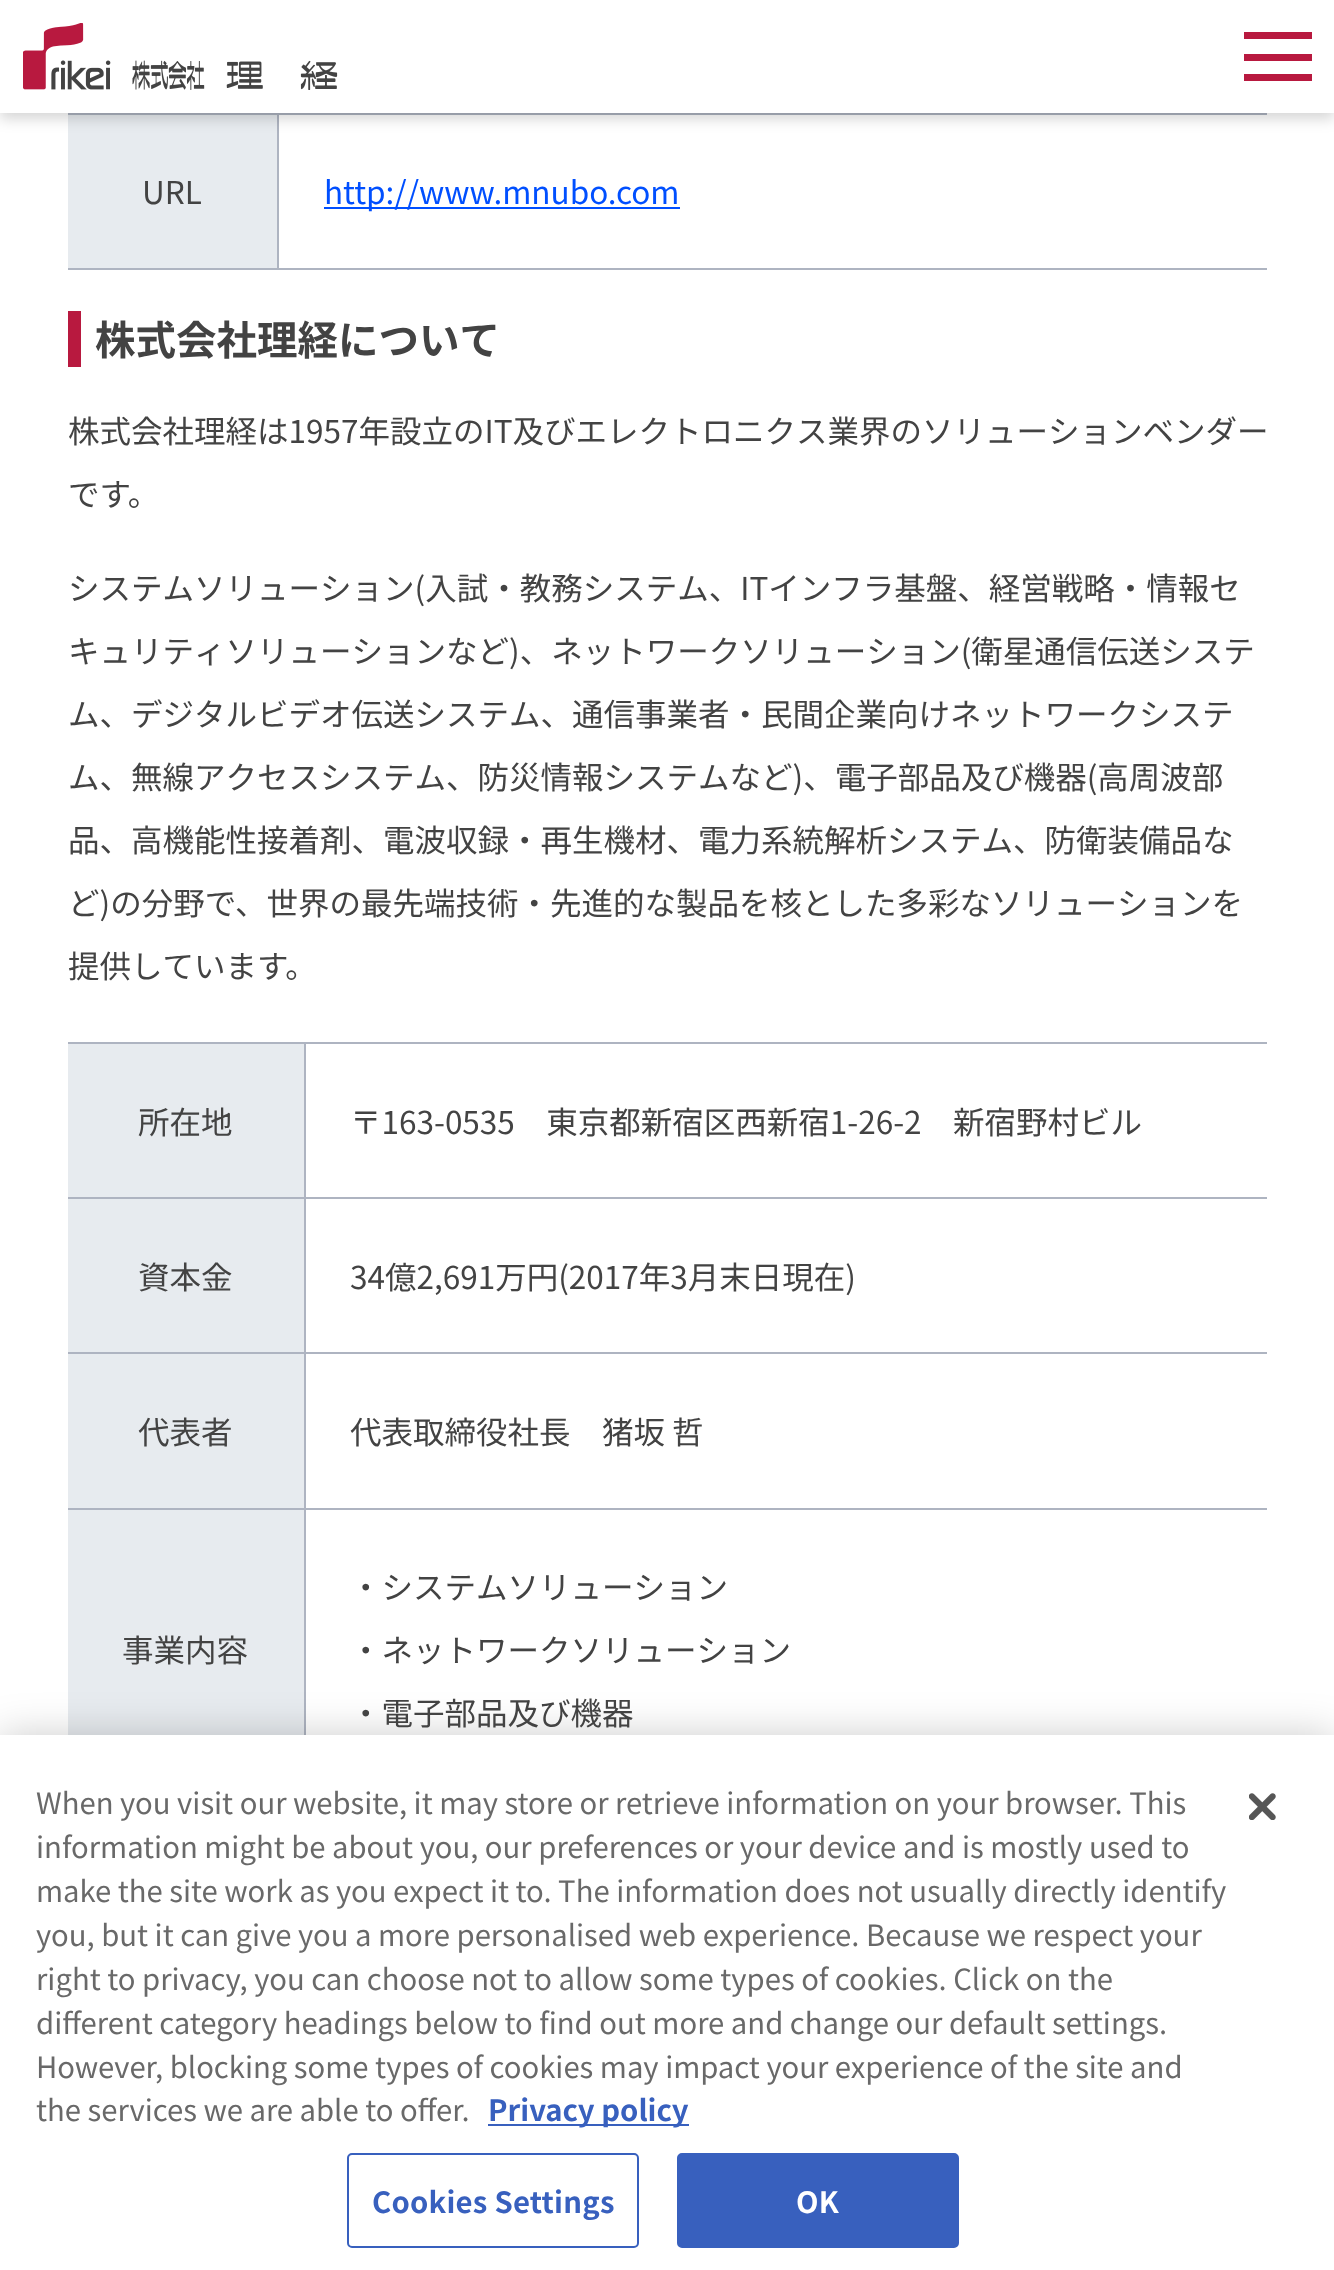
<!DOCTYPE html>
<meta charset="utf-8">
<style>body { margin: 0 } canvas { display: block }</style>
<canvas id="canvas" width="1334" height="2270"></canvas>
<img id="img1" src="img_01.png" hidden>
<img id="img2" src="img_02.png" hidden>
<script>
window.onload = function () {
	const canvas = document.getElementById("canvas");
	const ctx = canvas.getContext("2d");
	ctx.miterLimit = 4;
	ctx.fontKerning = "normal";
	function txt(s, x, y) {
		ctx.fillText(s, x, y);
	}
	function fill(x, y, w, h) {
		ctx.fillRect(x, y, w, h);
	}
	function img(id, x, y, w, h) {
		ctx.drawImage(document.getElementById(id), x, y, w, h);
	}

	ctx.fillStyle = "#FFFFFF";
	fill(0, 0, 1334, 2270);
	ctx.fillStyle = "#AEB4C1";
	fill(277, 268, 990, 2);
	fill(277, 113, 2, 157);
	fill(68, 113, 1199, 2);
	ctx.fillStyle = "#E7EBEF";
	fill(68, 115, 209, 153);
	ctx.fillStyle = "rgba(0, 0, 0, 0.16)";
	ctx.filter = "blur(7px)";
	ctx.beginPath();
	ctx.rect(0, 7, 1334, 112);
	ctx.fill();
	ctx.filter = "none";
	ctx.fillStyle = "#FFFFFF";
	fill(0, 0, 1334, 113);
	img("img1", 23, 23, 315, 67);
	ctx.fillStyle = "#B8193F";
	fill(1244, 54, 68, 7);
	fill(1244, 32, 68, 7);
	fill(1244, 74, 68, 7);
	ctx.fillStyle = "#AEB4C1";
	fill(68, 268, 211, 2);
	ctx.fillStyle = "#004FFF";
	fill(324, 207, 356, 2);
	ctx.fillStyle = "#B8193F";
	fill(68, 311, 13, 56);
	ctx.fillStyle = "#AEB4C1";
	fill(68, 1042, 1199, 2);
	ctx.fillStyle = "#E7EBEF";
	fill(68, 1044, 236, 153);
	ctx.fillStyle = "#AEB4C1";
	fill(304, 1508, 2, 227);
	fill(304, 1508, 963, 2);
	fill(304, 1352, 2, 158);
	fill(304, 1352, 963, 2);
	fill(304, 1197, 2, 158);
	fill(304, 1197, 963, 2);
	fill(304, 1042, 2, 157);
	fill(68, 1197, 238, 2);
	ctx.fillStyle = "#E7EBEF";
	fill(68, 1199, 236, 153);
	ctx.fillStyle = "#AEB4C1";
	fill(68, 1352, 238, 2);
	ctx.fillStyle = "#E7EBEF";
	fill(68, 1354, 236, 154);
	ctx.fillStyle = "#AEB4C1";
	fill(68, 1508, 238, 2);
	ctx.fillStyle = "#E7EBEF";
	fill(68, 1510, 236, 225);
	ctx.fillStyle = "rgba(0, 0, 0, 0.2)";
	ctx.filter = "blur(20px)";
	ctx.beginPath();
	ctx.rect(0, 1735, 1334, 535);
	ctx.fill();
	ctx.filter = "none";
	ctx.fillStyle = "#FFFFFF";
	fill(0, 1735, 1334, 535);
	ctx.fillStyle = "#3860BE";
	fill(488, 2124, 201, 2);
	ctx.beginPath();
	ctx.roundRect(348, 2154, 290, 93, 4);
	ctx.strokeStyle = "#3860BE";
	ctx.lineWidth = 2;
	ctx.stroke();
	ctx.beginPath();
	ctx.roundRect(678, 2154, 280, 93, 4);
	ctx.fill();
	ctx.stroke();
	img("img2", 1249, 1793, 27, 27);
	ctx.font = "31.5px Noto Sans JP";
	ctx.fillStyle = "#434343";
	txt("URL", 142, 204);
	ctx.fillStyle = "#004FFF";
	txt("http://www.mnubo.com", 324, 204);
	ctx.font = "bold 40.5px Noto Sans JP";
	ctx.fillStyle = "#434343";
	txt("株式会社理経について", 95, 355);
	ctx.font = "31.5px Noto Sans JP";
	txt("株式会社理経は1957年設立のIT及びエレクトロニクス業界のソリューションベンダー", 68, 443);
	txt("です。", 68, 506);
	txt("システムソリューション(入試・教務システム、ITインフラ基盤、経営戦略・情報セ", 68, 600);
	txt("キュリティソリューションなど)、ネットワークソリューション(衛星通信伝送システ", 68, 663);
	txt("ム、デジタルビデオ伝送システム、通信事業者・民間企業向けネットワークシステ", 68, 726);
	txt("ム、無線アクセスシステム、防災情報システムなど)、電子部品及び機器(高周波部", 68, 789);
	txt("品、高機能性接着剤、電波収録・再生機材、電力系統解析システム、防衛装備品な", 68, 852);
	txt("ど)の分野で、世界の最先端技術・先進的な製品を核とした多彩なソリューションを", 68, 915);
	txt("提供しています。", 68, 978);
	txt("所在地", 138, 1134);
	txt("〒163-0535　東京都新宿区西新宿1-26-2　新宿野村ビル", 350, 1134);
	txt("資本金", 138, 1289);
	txt("34億2,691万円(2017年3月末日現在)", 350, 1289);
	txt("代表者", 138, 1444);
	txt("代表取締役社長　猪坂 哲", 350, 1444);
	txt("事業内容", 122, 1662);
	txt("・システムソリューション", 350, 1599);
	txt("・ネットワークソリューション", 350, 1662);
	txt("・電子部品及び機器", 350, 1725);
	ctx.font = "29.25px Noto Sans JP";
	ctx.fillStyle = "#696969";
	txt("When you visit our website, it may store or retrieve information on your browser. This", 36, 1814);
	txt("information might be about you, our preferences or your device and is mostly used to", 36, 1858);
	txt("make the site work as you expect it to. The information does not usually directly identify", 36, 1902);
	txt("you, but it can give you a more personalised web experience. Because we respect your", 36, 1946);
	txt("right to privacy, you can choose not to allow some types of cookies. Click on the", 36, 1990);
	txt("different category headings below to find out more and change our default settings.", 36, 2034);
	txt("However, blocking some types of cookies may impact your experience of the site and", 36, 2078);
	txt("the services we are able to offer.", 36, 2121);
	ctx.font = "bold 29.25px Noto Sans JP";
	ctx.fillStyle = "#3860BE";
	txt("Privacy policy", 488, 2121);
	ctx.letterSpacing = "0.25px";
	txt("Cookies Settings", 372, 2213);
	ctx.fillStyle = "#FFFFFF";
	txt("OK", 796, 2213);
};
</script>
